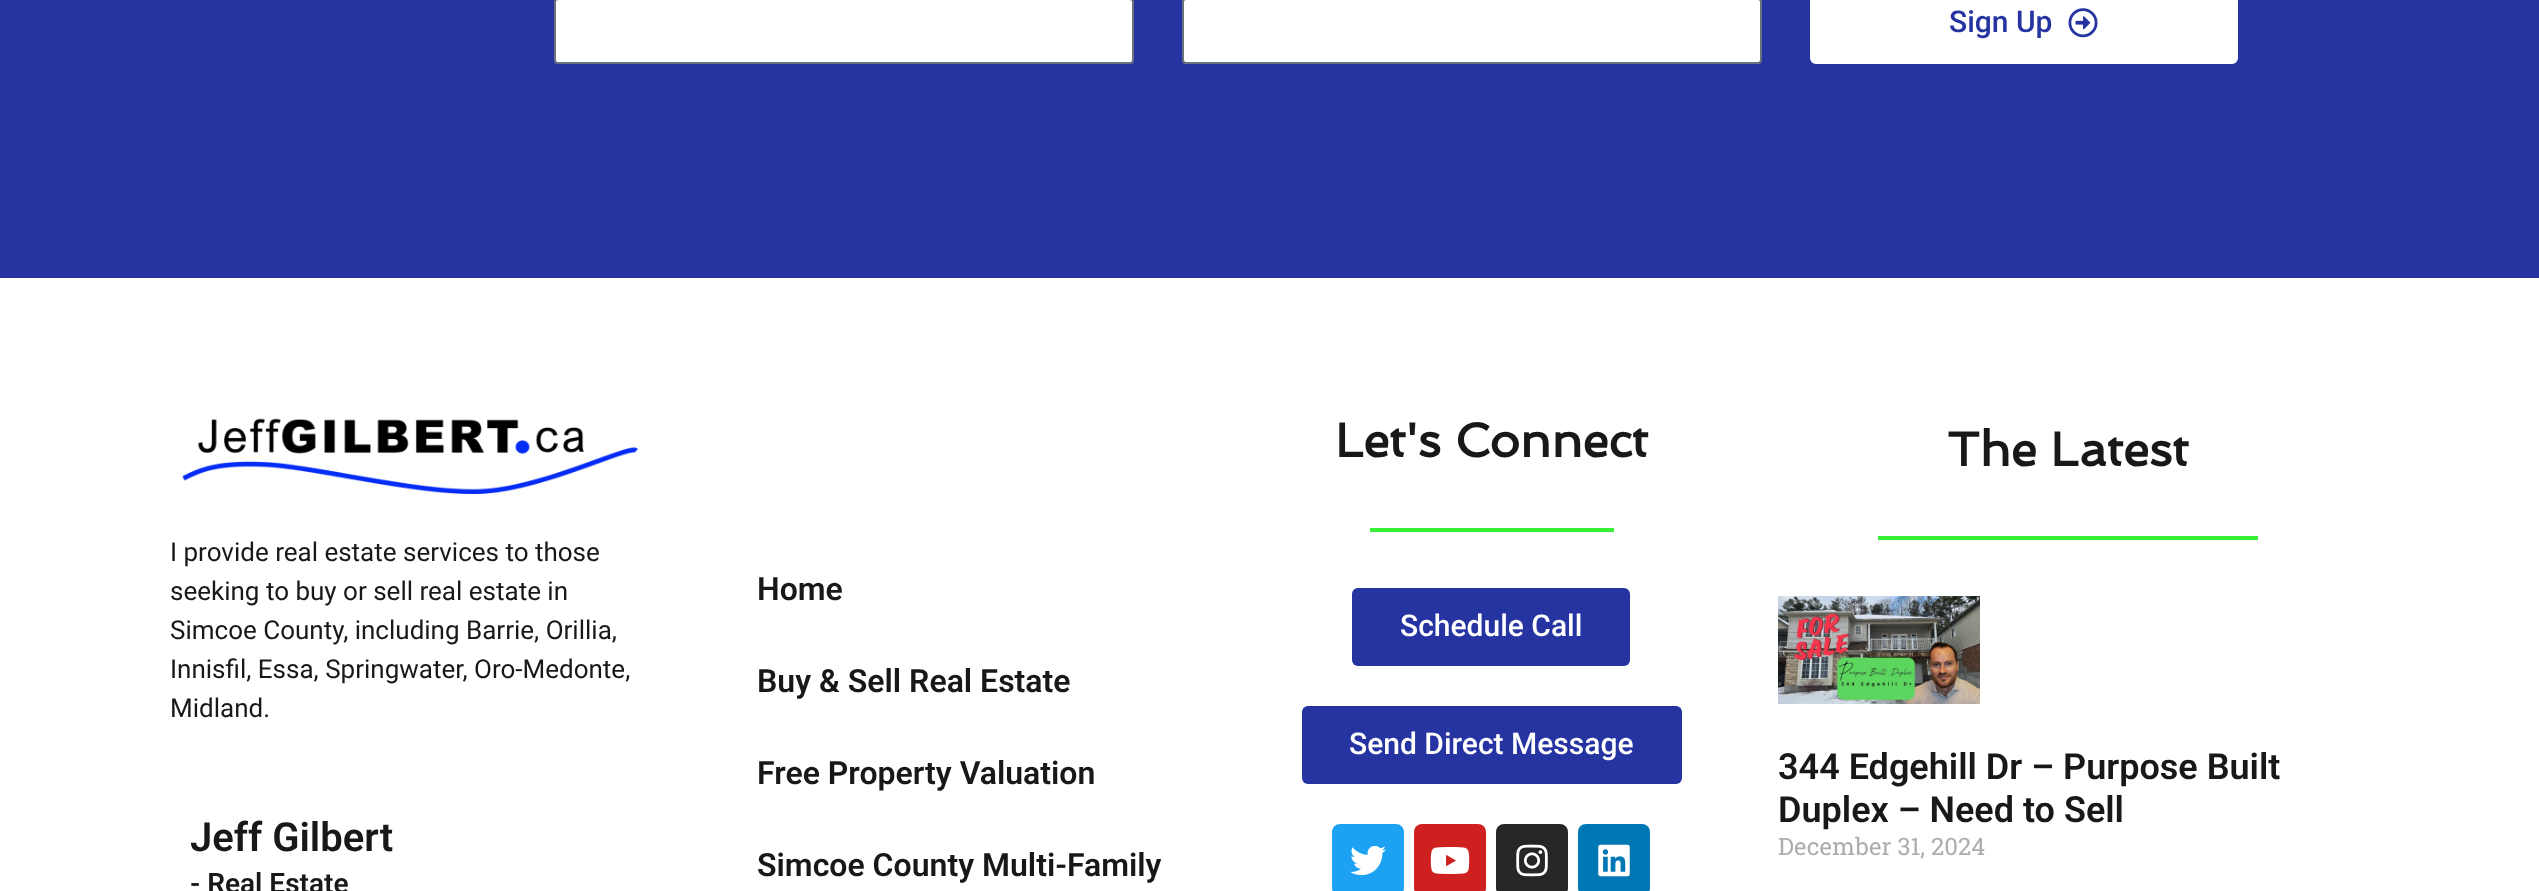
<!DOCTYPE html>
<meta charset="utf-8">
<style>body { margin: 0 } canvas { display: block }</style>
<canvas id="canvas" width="2539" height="891"></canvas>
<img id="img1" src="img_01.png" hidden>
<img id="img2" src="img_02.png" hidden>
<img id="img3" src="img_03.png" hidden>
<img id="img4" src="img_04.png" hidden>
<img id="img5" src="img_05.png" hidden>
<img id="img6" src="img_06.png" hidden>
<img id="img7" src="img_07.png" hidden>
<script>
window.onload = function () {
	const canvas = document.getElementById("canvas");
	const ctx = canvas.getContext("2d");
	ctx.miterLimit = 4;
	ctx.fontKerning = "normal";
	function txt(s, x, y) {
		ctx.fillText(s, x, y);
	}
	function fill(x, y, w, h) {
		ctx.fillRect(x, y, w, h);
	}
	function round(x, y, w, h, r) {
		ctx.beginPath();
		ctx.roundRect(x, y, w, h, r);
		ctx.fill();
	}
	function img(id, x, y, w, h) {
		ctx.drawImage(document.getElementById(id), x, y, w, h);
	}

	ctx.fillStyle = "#FFFFFF";
	fill(0, 0, 2539, 891);
	ctx.fillStyle = "#2634A1";
	fill(0, 0, 2539, 278);
	ctx.fillStyle = "#FFFFFF";
	ctx.beginPath();
	ctx.roundRect(555, -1, 578, 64, 3);
	ctx.fill();
	ctx.strokeStyle = "#69727D";
	ctx.lineWidth = 2;
	ctx.stroke();
	ctx.beginPath();
	ctx.roundRect(1183, -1, 578, 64, 3);
	ctx.fill();
	ctx.stroke();
	round(1810, -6, 428, 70, 6);
	img("img1", 2068, 8, 30, 30);
	img("img2", 182, 418, 456, 76);
	ctx.fillStyle = "#37EF34";
	fill(1370, 528, 244, 4);
	ctx.fillStyle = "#2634A1";
	round(1352, 588, 278, 78, 6);
	round(1302, 706, 380, 78, 6);
	ctx.fillStyle = "#1DA1F2";
	round(1332, 824, 72, 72, 8);
	img("img3", 1350, 845, 36, 31);
	ctx.fillStyle = "#CD201F";
	round(1414, 824, 72, 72, 8);
	img("img4", 1430, 847, 40, 27);
	ctx.fillStyle = "#262626";
	round(1496, 824, 72, 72, 8);
	img("img5", 1516, 844, 32, 33);
	ctx.fillStyle = "#0077B5";
	round(1578, 824, 72, 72, 8);
	img("img6", 1598, 844, 32, 33);
	ctx.fillStyle = "#37EF34";
	fill(1878, 536, 380, 4);
	img("img7", 1778, 596, 202, 108);
	ctx.font = "500 30px Roboto";
	ctx.fillStyle = "#2634A1";
	txt("Sign Up", 1949, 32);
	ctx.font = "26px Roboto";
	ctx.fillStyle = "#18181A";
	txt("I provide real estate services to those", 170, 561);
	txt("seeking to buy or sell real estate in", 170, 600);
	txt("Simcoe County, including Barrie, Orillia,", 170, 639);
	txt("Innisfil, Essa, Springwater, Oro-Medonte,", 170, 678);
	txt("Midland.", 170, 717);
	ctx.font = "600 40px Roboto";
	txt("Jeff Gilbert", 190, 851);
	ctx.font = "600 28px Roboto";
	txt("- Real Estate", 190, 893);
	ctx.font = "600 32px Roboto";
	txt("Home", 757, 600);
	txt("Buy & Sell Real Estate", 757, 692);
	txt("Free Property Valuation", 757, 784);
	txt("Simcoe County Multi-Family", 757, 876);
	ctx.font = "bold 48px Spinnaker";
	txt("Let's Connect", 1335, 457);
	ctx.font = "500 30px Roboto";
	ctx.fillStyle = "#FFFFFF";
	txt("Schedule Call", 1400, 636);
	txt("Send Direct Message", 1349, 754);
	ctx.font = "bold 48px Spinnaker";
	ctx.fillStyle = "#18181A";
	txt("The Latest", 1947, 466);
	ctx.font = "600 36px Roboto";
	txt("344 Edgehill Dr – Purpose Built", 1778, 779);
	txt("Duplex – Need to Sell", 1778, 822);
	ctx.font = "24px Roboto Slab";
	ctx.fillStyle = "#ADADAD";
	txt("December 31, 2024", 1778, 855);
};
</script>
